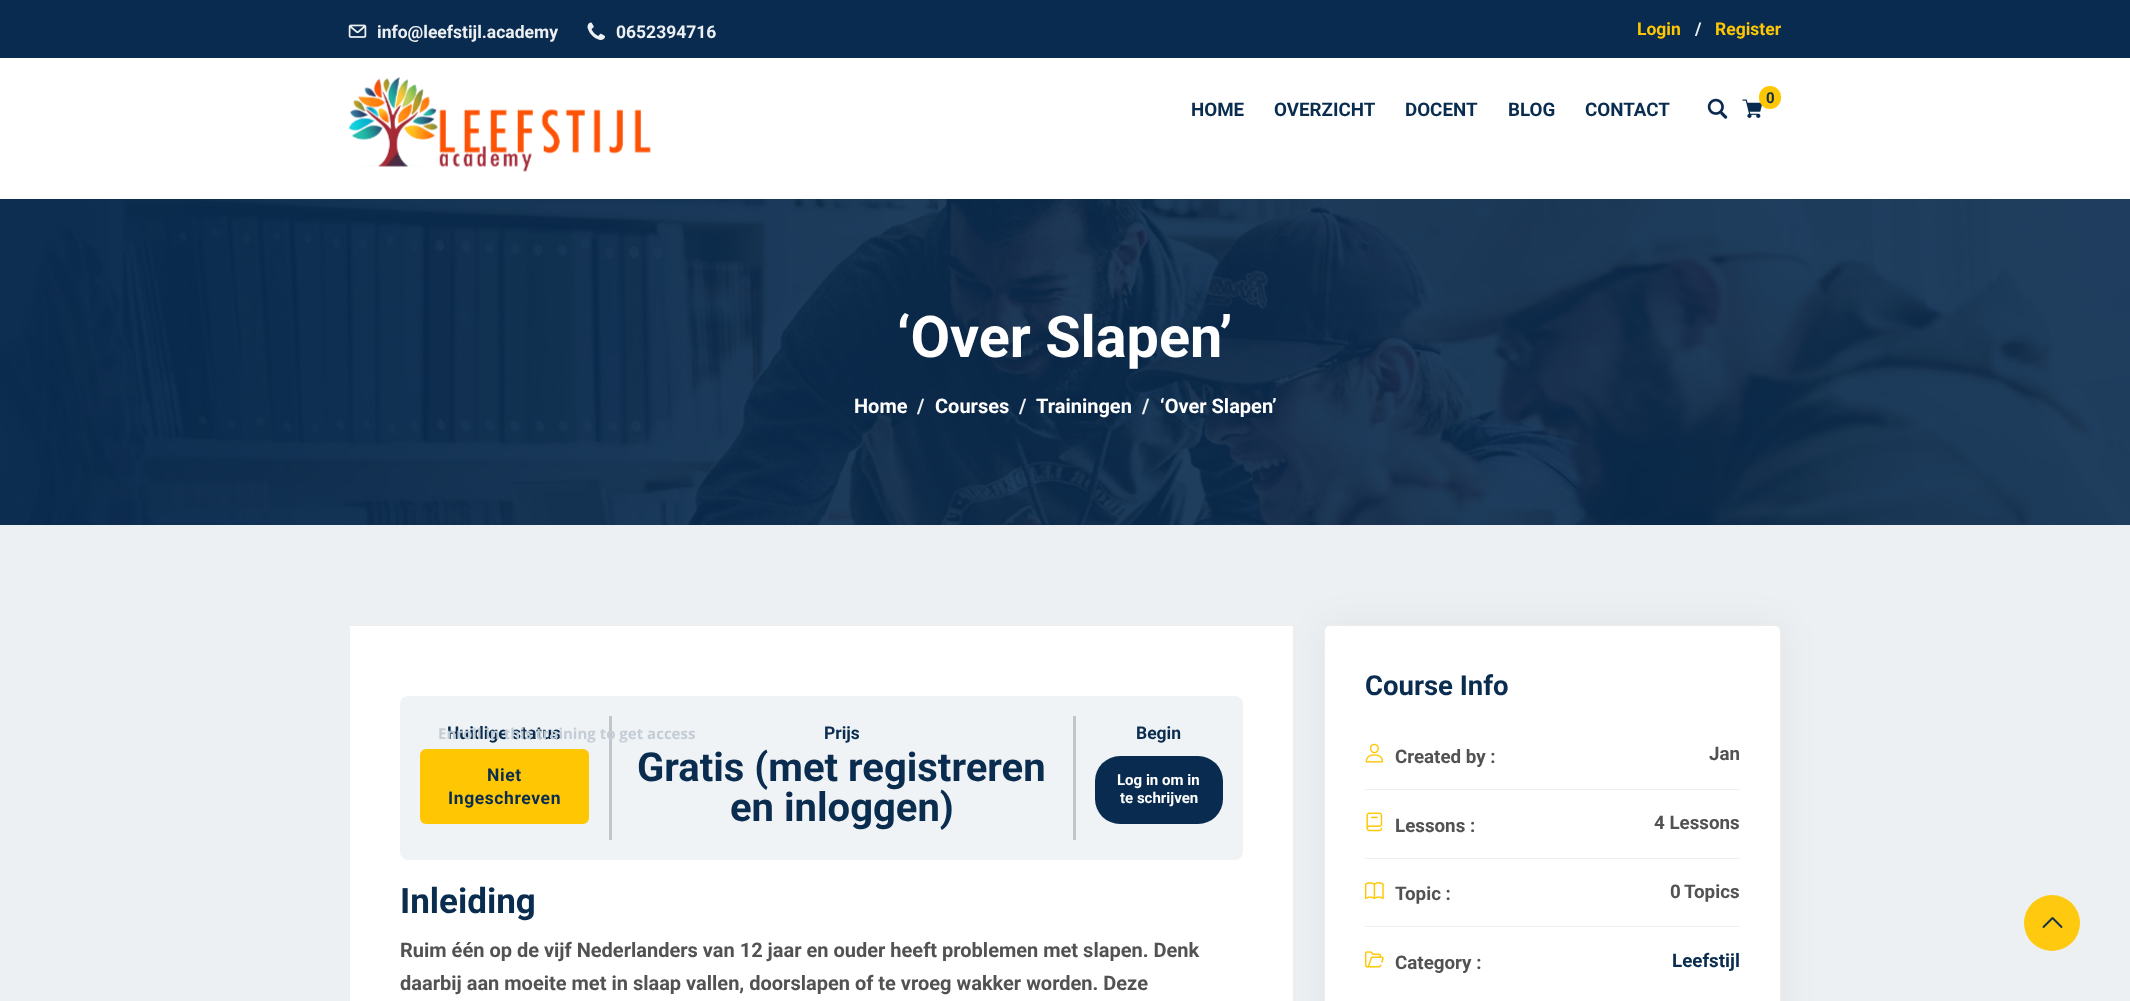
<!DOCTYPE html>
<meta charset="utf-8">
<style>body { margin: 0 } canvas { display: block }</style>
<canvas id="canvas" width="2130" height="1001"></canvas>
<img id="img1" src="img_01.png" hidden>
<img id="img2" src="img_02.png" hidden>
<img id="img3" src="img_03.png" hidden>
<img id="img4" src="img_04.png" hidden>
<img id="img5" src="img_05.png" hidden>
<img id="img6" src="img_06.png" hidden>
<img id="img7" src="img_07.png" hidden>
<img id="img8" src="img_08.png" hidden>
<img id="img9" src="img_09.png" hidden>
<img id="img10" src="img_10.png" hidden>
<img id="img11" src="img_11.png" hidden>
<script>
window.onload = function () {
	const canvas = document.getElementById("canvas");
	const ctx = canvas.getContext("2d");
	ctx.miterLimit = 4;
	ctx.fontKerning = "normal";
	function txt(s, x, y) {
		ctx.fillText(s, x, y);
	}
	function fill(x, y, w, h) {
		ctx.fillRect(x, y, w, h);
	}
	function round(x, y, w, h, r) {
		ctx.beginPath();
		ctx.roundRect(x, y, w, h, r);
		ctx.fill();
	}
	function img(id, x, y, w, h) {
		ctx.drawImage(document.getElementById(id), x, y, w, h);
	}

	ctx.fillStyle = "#EDF0F2";
	fill(0, 0, 2130, 1001);
	ctx.fillStyle = "#FFFFFF";
	fill(0, 58, 2130, 141);
	ctx.fillStyle = "#092B4F";
	fill(0, 0, 2130, 58);
	img("img1", 348, 24, 19, 14);
	img("img2", 587, 22, 18, 18);
	img("img3", 348, 77, 303, 95);
	img("img4", 1707, 98, 21, 21);
	img("img5", 1742, 99, 20, 19);
	ctx.fillStyle = "#FFC703";
	round(1759, 86, 22, 23, 11);
	img("img6", 0, 199, 2130, 326);
	ctx.fillStyle = "#FFFFFF";
	ctx.beginPath();
	ctx.rect(349.5, 625.5, 944, 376);
	ctx.fill();
	ctx.strokeStyle = "#EEEEEE";
	ctx.stroke();
	ctx.fillStyle = "#F0F3F6";
	round(400, 696, 843, 164, 8);
	ctx.fillStyle = "#BFC6CC";
	fill(609, 716, 3, 124);
	ctx.fillStyle = "#FFC703";
	round(420, 749, 169, 75, 6);
	ctx.fillStyle = "#BFC6CC";
	fill(1073, 716, 3, 124);
	ctx.fillStyle = "#092B4F";
	round(1095, 756, 128, 68, 25);
	ctx.fillStyle = "rgba(3, 3, 3, 0.05)";
	ctx.filter = "blur(19px)";
	ctx.beginPath();
	ctx.roundRect(1324, 625, 457, 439, 6);
	ctx.fill();
	ctx.filter = "none";
	ctx.fillStyle = "#FFFFFF";
	ctx.beginPath();
	ctx.roundRect(1324.5, 625.5, 456, 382, 5.5);
	ctx.fill();
	ctx.strokeStyle = "#EDEDED";
	ctx.stroke();
	img("img7", 1365, 743, 19, 20);
	ctx.fillStyle = "#F0F0F0";
	fill(1365, 789, 375, 1);
	img("img8", 1366, 812, 17, 20);
	fill(1365, 858, 375, 1);
	img("img9", 1365, 882, 19, 18);
	fill(1365, 926, 375, 1);
	img("img10", 1365, 951, 19, 17);
	ctx.fillStyle = "#FEC90E";
	ctx.beginPath();
	ctx.arc(2052, 923, 28, 0, Math.PI * 2);
	ctx.fill();
	img("img11", 2042, 917, 21, 11);
	ctx.font = "bold 17.5px Roboto";
	ctx.fillStyle = "#EDF0F2";
	txt("info@leefstijl.academy", 377, 38);
	txt("0652394716", 616, 38);
	ctx.fillStyle = "#FFC703";
	txt("Login", 1637, 35);
	ctx.fillStyle = "#EDF0F2";
	txt("/", 1695, 35);
	ctx.fillStyle = "#FFC703";
	txt("Register", 1715, 35);
	ctx.font = "bold 15px Roboto";
	ctx.fillStyle = "#092C4F";
	txt("0", 1766, 103);
	ctx.font = "bold 18.75px Roboto";
	txt("HOME", 1191, 116);
	txt("OVERZICHT", 1274, 116);
	txt("DOCENT", 1405, 116);
	txt("BLOG", 1508, 116);
	txt("CONTACT", 1585, 116);
	ctx.font = "bold 57.5px Roboto";
	ctx.fillStyle = "#FFFFFF";
	txt("‘Over Slapen’", 897, 357);
	ctx.font = "bold 20px Roboto";
	txt("Home", 854, 413);
	ctx.fillStyle = "#EDF0F2";
	txt("/", 917, 413);
	ctx.fillStyle = "#FFFFFF";
	txt("Courses", 935, 413);
	ctx.fillStyle = "#EDF0F2";
	txt("/", 1019, 413);
	ctx.fillStyle = "#FFFFFF";
	txt("Trainingen", 1036, 413);
	ctx.fillStyle = "#EDF0F2";
	txt("/", 1142, 413);
	ctx.fillStyle = "#FFFFFF";
	txt("‘Over Slapen’", 1160, 413);
	ctx.font = "bold 17.5px Roboto";
	ctx.fillStyle = "#092C4F";
	txt("Huidige status", 447, 739);
	ctx.letterSpacing = "0.6px";
	txt("Niet", 487, 781);
	txt("Ingeschreven", 448, 804);
	ctx.letterSpacing = "0px";
	txt("Prijs", 824, 739);
	ctx.font = "bold 40px Roboto";
	txt("Gratis (met registreren", 637, 781);
	txt("en inloggen)", 730, 821);
	ctx.font = "bold 17.5px Roboto";
	txt("Begin", 1136, 739);
	ctx.font = "bold 15px Roboto";
	ctx.fillStyle = "#FFFFFF";
	txt("Log in om in", 1117, 785);
	txt("te schrijven", 1120, 803);
	ctx.font = "bold 35px Roboto";
	ctx.fillStyle = "#092C4F";
	txt("Inleiding", 400, 913);
	ctx.font = "bold 20px Roboto";
	ctx.fillStyle = "#525252";
	txt("Ruim één op de vijf Nederlanders van 12 jaar en ouder heeft problemen met slapen. Denk", 400, 957);
	txt("daarbij aan moeite met in slaap vallen, doorslapen of te vroeg wakker worden. Deze", 400, 990);
	ctx.font = "bold 27.5px Roboto";
	ctx.fillStyle = "#092C4F";
	txt("Course Info", 1365, 695);
	ctx.font = "bold 18.75px Roboto";
	ctx.fillStyle = "#525252";
	txt("Created by :", 1395, 763);
	txt("Jan", 1709, 760);
	txt("Lessons :", 1395, 832);
	txt("4 Lessons", 1654, 829);
	txt("Topic :", 1395, 900);
	txt("0", 1670, 898);
	txt("Topics", 1684, 898);
	txt("Category :", 1395, 969);
	ctx.fillStyle = "#092C4F";
	txt("Leefstijl", 1672, 967);
	ctx.font = "bold 15px Open Sans";
	ctx.fillStyle = "#C4CDD5";
	txt("Enroll in this training to get access", 438, 739);
};
</script>
